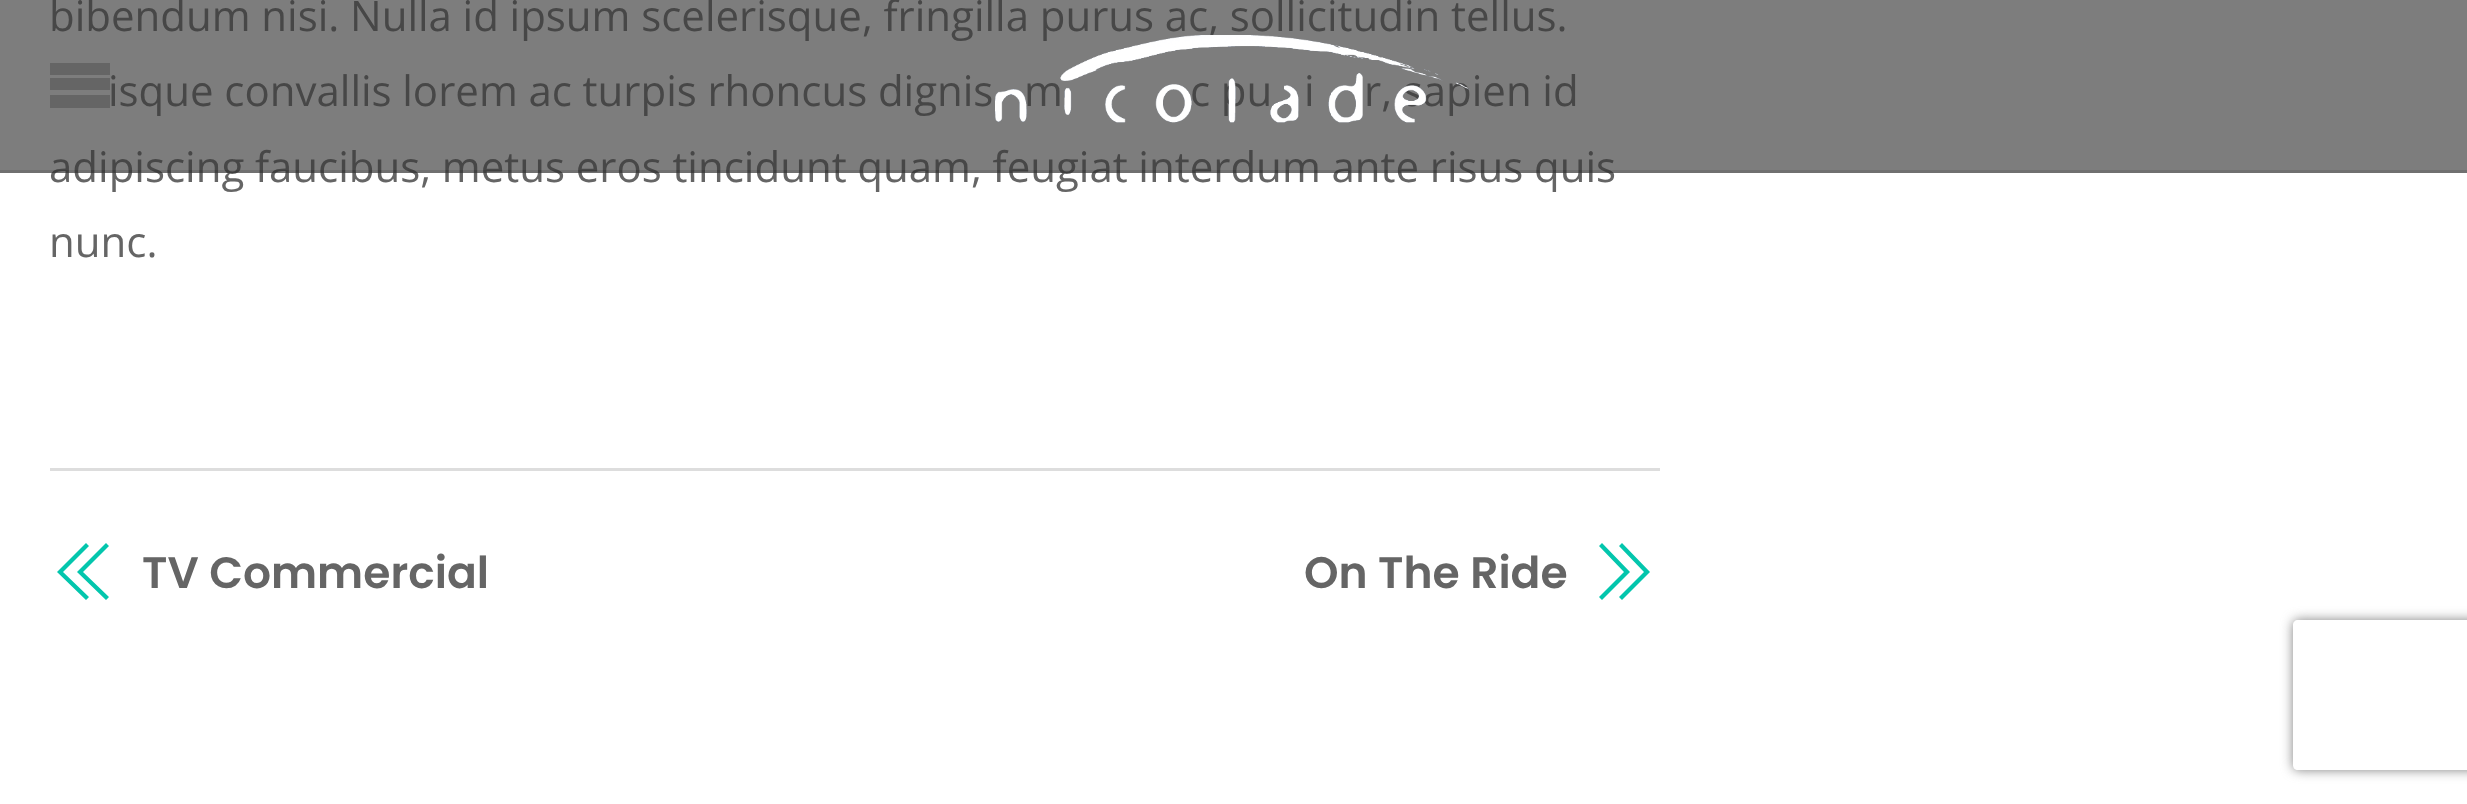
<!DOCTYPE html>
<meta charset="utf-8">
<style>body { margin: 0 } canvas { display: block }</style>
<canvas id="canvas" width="2467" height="804"></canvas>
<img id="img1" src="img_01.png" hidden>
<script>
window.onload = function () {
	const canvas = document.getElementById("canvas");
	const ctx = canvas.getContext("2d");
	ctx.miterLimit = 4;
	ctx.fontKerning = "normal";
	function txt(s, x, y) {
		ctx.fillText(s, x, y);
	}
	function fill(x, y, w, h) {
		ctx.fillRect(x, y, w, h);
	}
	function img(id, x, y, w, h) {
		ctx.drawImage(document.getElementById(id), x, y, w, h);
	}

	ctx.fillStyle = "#FFFFFF";
	fill(0, 0, 2467, 804);
	ctx.fillStyle = "#DDDDDD";
	fill(50, 468, 1610, 3);
	ctx.fillStyle = "#03C6AD";
	ctx.beginPath();
	ctx.moveTo(83, 572);
	ctx.lineTo(109, 597);
	ctx.lineTo(106, 600);
	ctx.lineTo(77, 572);
	ctx.lineTo(106, 543);
	ctx.lineTo(109, 546);
	ctx.closePath();
	ctx.moveTo(89, 546);
	ctx.lineTo(86, 543);
	ctx.lineTo(57, 572);
	ctx.lineTo(86, 600);
	ctx.lineTo(89, 597);
	ctx.lineTo(63, 572);
	ctx.closePath();
	ctx.fill();
	ctx.beginPath();
	ctx.moveTo(1630, 572);
	ctx.lineTo(1602, 600);
	ctx.lineTo(1599, 597);
	ctx.lineTo(1624, 572);
	ctx.lineTo(1599, 546);
	ctx.lineTo(1602, 543);
	ctx.closePath();
	ctx.moveTo(1622, 543);
	ctx.lineTo(1619, 546);
	ctx.lineTo(1644, 572);
	ctx.lineTo(1619, 597);
	ctx.lineTo(1622, 600);
	ctx.lineTo(1650, 572);
	ctx.closePath();
	ctx.fill();
	ctx.save();
	ctx.beginPath();
	ctx.moveTo(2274, 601);
	ctx.lineTo(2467, 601);
	ctx.lineTo(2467, 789);
	ctx.lineTo(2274, 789);
	ctx.closePath();
	ctx.moveTo(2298, 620);
	ctx.lineTo(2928, 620);
	ctx.bezierCurveTo(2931, 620, 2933, 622, 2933, 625);
	ctx.lineTo(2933, 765);
	ctx.bezierCurveTo(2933, 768, 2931, 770, 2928, 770);
	ctx.lineTo(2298, 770);
	ctx.bezierCurveTo(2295, 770, 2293, 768, 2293, 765);
	ctx.lineTo(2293, 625);
	ctx.bezierCurveTo(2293, 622, 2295, 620, 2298, 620);
	ctx.closePath();
	ctx.clip("evenodd");
	ctx.fillStyle = "#808080";
	ctx.filter = "blur(6px)";
	ctx.beginPath();
	ctx.roundRect(2293, 620, 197, 150, 5);
	ctx.fill();
	ctx.filter = "none";
	ctx.restore();
	ctx.wordSpacing = "-0.25px";
	ctx.font = "42px Open Sans";
	ctx.fillStyle = "#656565";
	txt("bibendum nisi. Nulla id ipsum scelerisque, fringilla purus ac, sollicitudin tellus.", 49, 31);
	txt("isque convallis lorem ac turpis rhoncus dignis", 108, 106);
	txt("m", 1024, 106);
	txt("c pu", 1190, 106);
	txt("i", 1304, 106);
	txt("r, sapien id", 1364, 106);
	txt("adipiscing faucibus, metus eros tincidunt quam, feugiat interdum ante risus quis", 49, 182);
	ctx.fillStyle = "rgba(56, 56, 56, 0.65)";
	fill(0, 0, 2467, 173);
	ctx.fillStyle = "#656565";
	fill(50, 78, 60, 12);
	fill(50, 63, 60, 12);
	fill(50, 95, 60, 13);
	img("img1", 995, 35, 475, 88);
	ctx.fillStyle = "rgba(0, 0, 0, 0.1)";
	fill(0, 170, 2467, 3);
	ctx.wordSpacing = "0px";
	ctx.fillStyle = "#656565";
	txt("nunc.", 49, 257);
	ctx.font = "600 44px Poppins";
	txt("TV Commercial", 142, 588);
	txt("On The Ride", 1304, 588);
};
</script>
